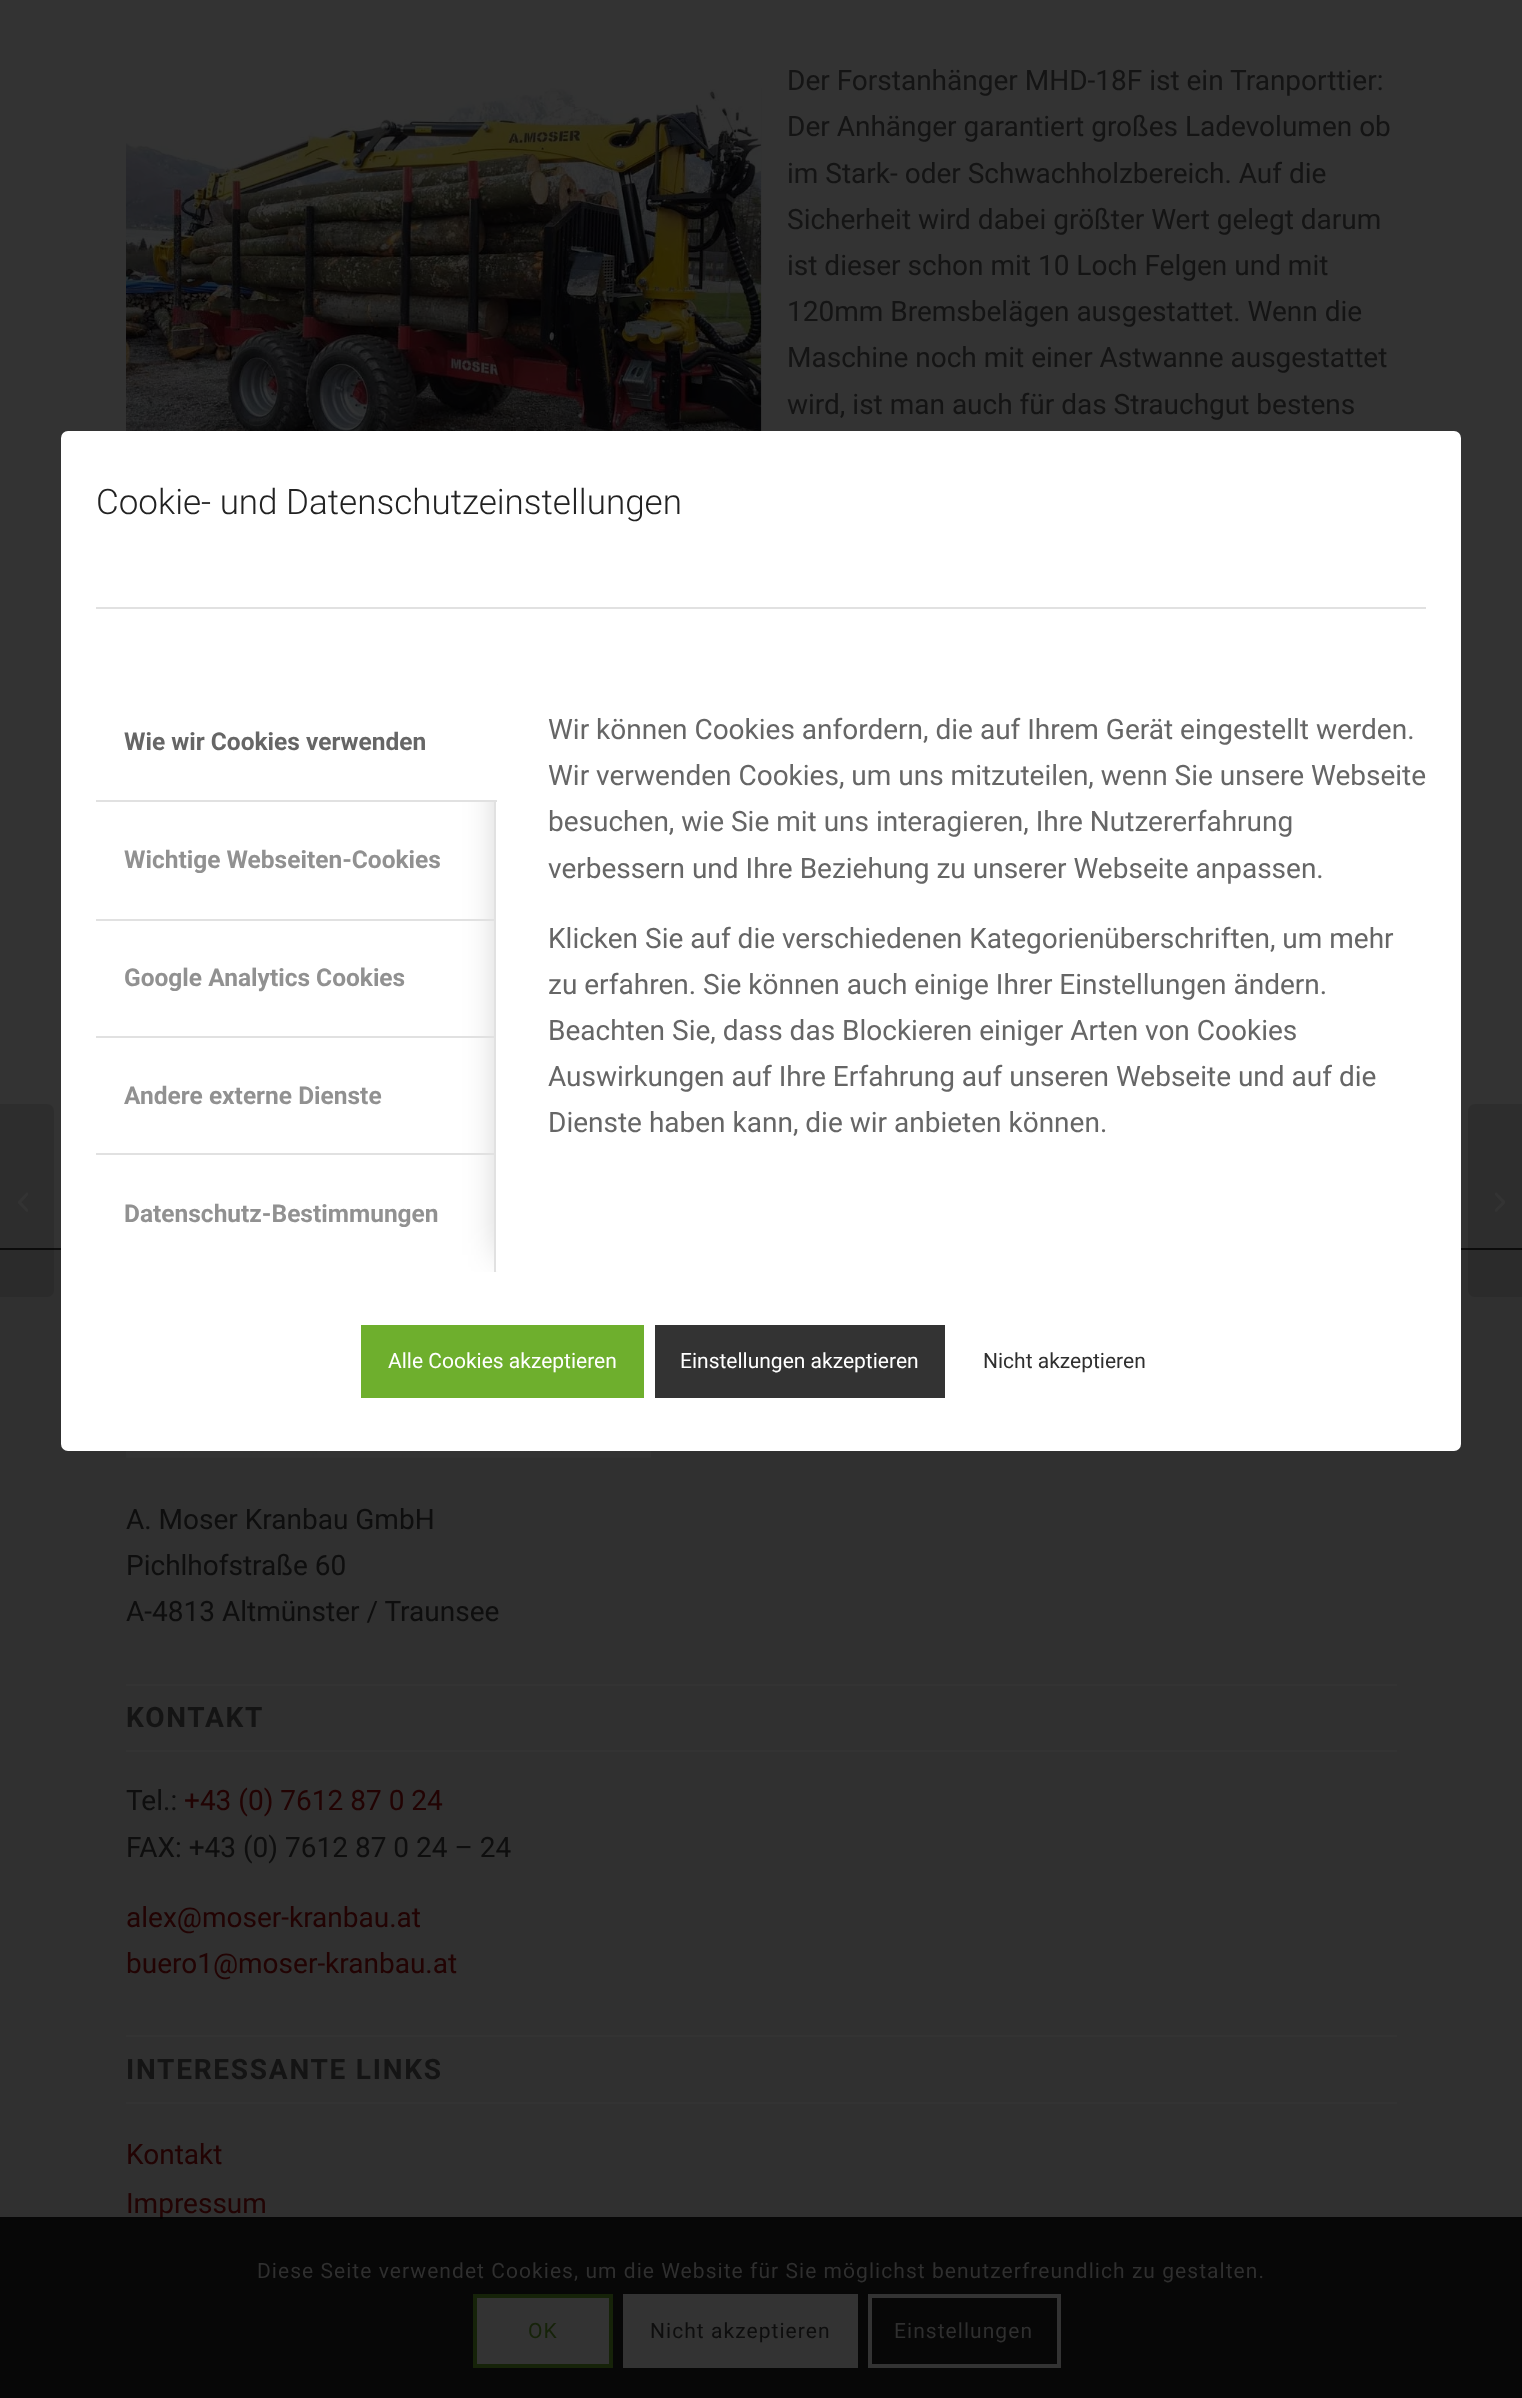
<!DOCTYPE html>
<meta charset="utf-8">
<style>body { margin: 0 } canvas { display: block }</style>
<canvas id="canvas" width="1522" height="2398"></canvas>
<img id="img1" src="img_01.png" hidden>
<img id="img2" src="img_02.png" hidden>
<img id="img3" src="img_03.png" hidden>
<img id="img4" src="img_04.png" hidden>
<script>
window.onload = function () {
	const canvas = document.getElementById("canvas");
	const ctx = canvas.getContext("2d");
	ctx.miterLimit = 4;
	ctx.fontKerning = "normal";
	function txt(s, x, y) {
		ctx.fillText(s, x, y);
	}
	function fill(x, y, w, h) {
		ctx.fillRect(x, y, w, h);
	}
	function round(x, y, w, h, r) {
		ctx.beginPath();
		ctx.roundRect(x, y, w, h, r);
		ctx.fill();
	}
	function img(id, x, y, w, h) {
		ctx.drawImage(document.getElementById(id), x, y, w, h);
	}

	ctx.fillStyle = "#333333";
	fill(0, 0, 1522, 2398);
	ctx.fillStyle = "#303030";
	fill(0, 1250, 1522, 1148);
	ctx.fillStyle = "#0E0E0E";
	fill(0, 1248, 1522, 2);
	ctx.fillStyle = "rgba(0, 0, 0, 0.1)";
	ctx.beginPath();
	ctx.roundRect(0, 1104, 54, 193, [0, 7, 7, 0]);
	ctx.fill();
	img("img1", 18, 1192, 10, 20);
	img("img2", 126, 88, 636, 343);
	img("img3", 126, 1451, 525, 7);
	ctx.fillStyle = "#333333";
	fill(126, 1684, 1271, 2);
	fill(126, 1750, 1271, 2);
	fill(126, 2035, 1271, 2);
	fill(126, 2102, 1271, 2);
	fill(126, 2352, 1271, 2);
	ctx.fillStyle = "rgba(0, 0, 0, 0.1)";
	ctx.beginPath();
	ctx.moveTo(1475, 1104);
	ctx.lineTo(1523, 1104);
	ctx.lineTo(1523, 1297);
	ctx.lineTo(1475, 1297);
	ctx.bezierCurveTo(1471, 1297, 1468, 1294, 1468, 1290);
	ctx.lineTo(1468, 1111);
	ctx.bezierCurveTo(1468, 1107, 1471, 1104, 1475, 1104);
	ctx.closePath();
	ctx.fill();
	img("img4", 1495, 1192, 10, 20);
	ctx.fillStyle = "#FFFFFF";
	round(61, 431, 1400, 1020, 7);
	ctx.fillStyle = "#E1E1E1";
	fill(96, 607, 1330, 2);
	ctx.save();
	ctx.beginPath();
	ctx.rect(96, 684, 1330, 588);
	ctx.clip();
	ctx.fillStyle = "rgba(0, 0, 0, 0.2)";
	ctx.filter = "blur(17.5px)";
	ctx.beginPath();
	ctx.rect(499, 702, 896, 553);
	ctx.fill();
	ctx.filter = "none";
	ctx.restore();
	ctx.fillStyle = "#FFFFFF";
	round(495, 684, 931, 588, 4);
	ctx.fillStyle = "#E1E1E1";
	fill(494, 800, 2, 121);
	ctx.fillStyle = "#FFFFFF";
	ctx.beginPath();
	ctx.roundRect(96, 684, 401, 118, [4, 0, 0, 0]);
	ctx.fill();
	ctx.fillStyle = "#E1E1E1";
	fill(96, 800, 401, 2);
	fill(96, 919, 399, 2);
	fill(494, 919, 2, 119);
	fill(96, 1036, 399, 2);
	fill(494, 1036, 2, 119);
	fill(96, 1153, 399, 2);
	fill(494, 1153, 2, 119);
	ctx.fillStyle = "#6EAF2D";
	fill(361, 1325, 283, 73);
	ctx.fillStyle = "#333333";
	fill(655, 1325, 290, 73);
	ctx.font = "28px Roboto";
	ctx.fillStyle = "#141414";
	txt("Der Forstanhänger MHD-18F ist ein Tranporttier:", 787, 90);
	txt("Der Anhänger garantiert großes Ladevolumen ob", 787, 136);
	txt("im Stark- oder Schwachholzbereich. Auf die", 787, 183);
	txt("Sicherheit wird dabei größter Wert gelegt darum", 787, 229);
	txt("ist dieser schon mit 10 Loch Felgen und mit", 787, 275);
	txt("120mm Bremsbelägen ausgestattet. Wenn die", 787, 321);
	txt("Maschine noch mit einer Astwanne ausgestattet", 787, 367);
	txt("wird, ist man auch für das Strauchgut bestens", 787, 414);
	ctx.fillStyle = "#0E0E0E";
	txt("A. Moser Kranbau GmbH", 126, 1529);
	txt("Pichlhofstraße 60", 126, 1575);
	txt("A-4813 Altmünster / Traunsee", 126, 1621);
	ctx.letterSpacing = "1.75px";
	ctx.font = "bold 28px Roboto";
	ctx.fillStyle = "#141414";
	txt("KONTAKT", 126, 1727);
	ctx.letterSpacing = "0px";
	ctx.font = "28px Roboto";
	ctx.fillStyle = "#0E0E0E";
	txt("Tel.:", 126, 1810);
	ctx.fillStyle = "#220303";
	txt("+43 (0) 7612 87 0 24", 184, 1810);
	ctx.fillStyle = "#0E0E0E";
	txt("FAX: +43 (0) 7612 87 0 24 – 24", 126, 1857);
	ctx.fillStyle = "#220303";
	txt("alex@moser-kranbau.at", 126, 1927);
	txt("buero1@moser-kranbau.at", 126, 1973);
	ctx.letterSpacing = "1.75px";
	ctx.font = "bold 28px Roboto";
	ctx.fillStyle = "#141414";
	txt("INTERESSANTE LINKS", 126, 2079);
	ctx.letterSpacing = "0px";
	ctx.font = "28px Roboto";
	ctx.fillStyle = "#220303";
	txt("Kontakt", 126, 2164);
	txt("Impressum", 126, 2213);
	ctx.font = "300 35px Roboto";
	ctx.fillStyle = "#222222";
	txt("Cookie- und Datenschutzeinstellungen", 96, 514);
	ctx.font = "bold 24.5px Roboto";
	ctx.fillStyle = "#666666";
	txt("Wie wir Cookies verwenden", 124, 750);
	ctx.fillStyle = "#919191";
	txt("Wichtige Webseiten-Cookies", 124, 868);
	txt("Google Analytics Cookies", 124, 986);
	txt("Andere externe Dienste", 124, 1104);
	txt("Datenschutz-Bestimmungen", 124, 1222);
	ctx.font = "28px Roboto";
	ctx.fillStyle = "#666666";
	txt("Wir können Cookies anfordern, die auf Ihrem Gerät eingestellt werden.", 548, 739);
	txt("Wir verwenden Cookies, um uns mitzuteilen, wenn Sie unsere Webseite", 548, 785);
	txt("besuchen, wie Sie mit uns interagieren, Ihre Nutzererfahrung", 548, 831);
	txt("verbessern und Ihre Beziehung zu unserer Webseite anpassen.", 548, 878);
	txt("Klicken Sie auf die verschiedenen Kategorienüberschriften, um mehr", 548, 948);
	txt("zu erfahren. Sie können auch einige Ihrer Einstellungen ändern.", 548, 994);
	txt("Beachten Sie, dass das Blockieren einiger Arten von Cookies", 548, 1040);
	txt("Auswirkungen auf Ihre Erfahrung auf unseren Webseite und auf die", 548, 1086);
	txt("Dienste haben kann, die wir anbieten können.", 548, 1132);
	ctx.font = "21px Roboto";
	ctx.fillStyle = "#FFFFFF";
	txt("Alle Cookies akzeptieren", 388, 1368);
	txt("Einstellungen akzeptieren", 680, 1368);
	ctx.fillStyle = "#2F2F2F";
	txt("Nicht akzeptieren", 983, 1368);
	ctx.fillStyle = "rgba(0, 0, 0, 0.85)";
	fill(0, 2217, 1522, 181);
	ctx.letterSpacing = "1.05px";
	ctx.fillStyle = "#2F2F2F";
	txt("Diese Seite verwendet Cookies, um die Website für Sie möglichst benutzerfreundlich zu gestalten.", 257, 2278);
	ctx.fillStyle = "#333333";
	ctx.beginPath();
	ctx.rect(475, 2296, 136, 70);
	ctx.fill();
	ctx.strokeStyle = "#162309";
	ctx.lineWidth = 4;
	ctx.stroke();
	ctx.fillStyle = "#162309";
	txt("OK", 528, 2338);
	ctx.fillStyle = "#333333";
	fill(623, 2294, 235, 74);
	ctx.fillStyle = "#0E0E0E";
	txt("Nicht akzeptieren", 650, 2338);
	ctx.strokeStyle = "#333333";
	ctx.strokeRect(870, 2296, 189, 70);
	ctx.fillStyle = "#2F2F2F";
	txt("Einstellungen", 894, 2338);
};
</script>
